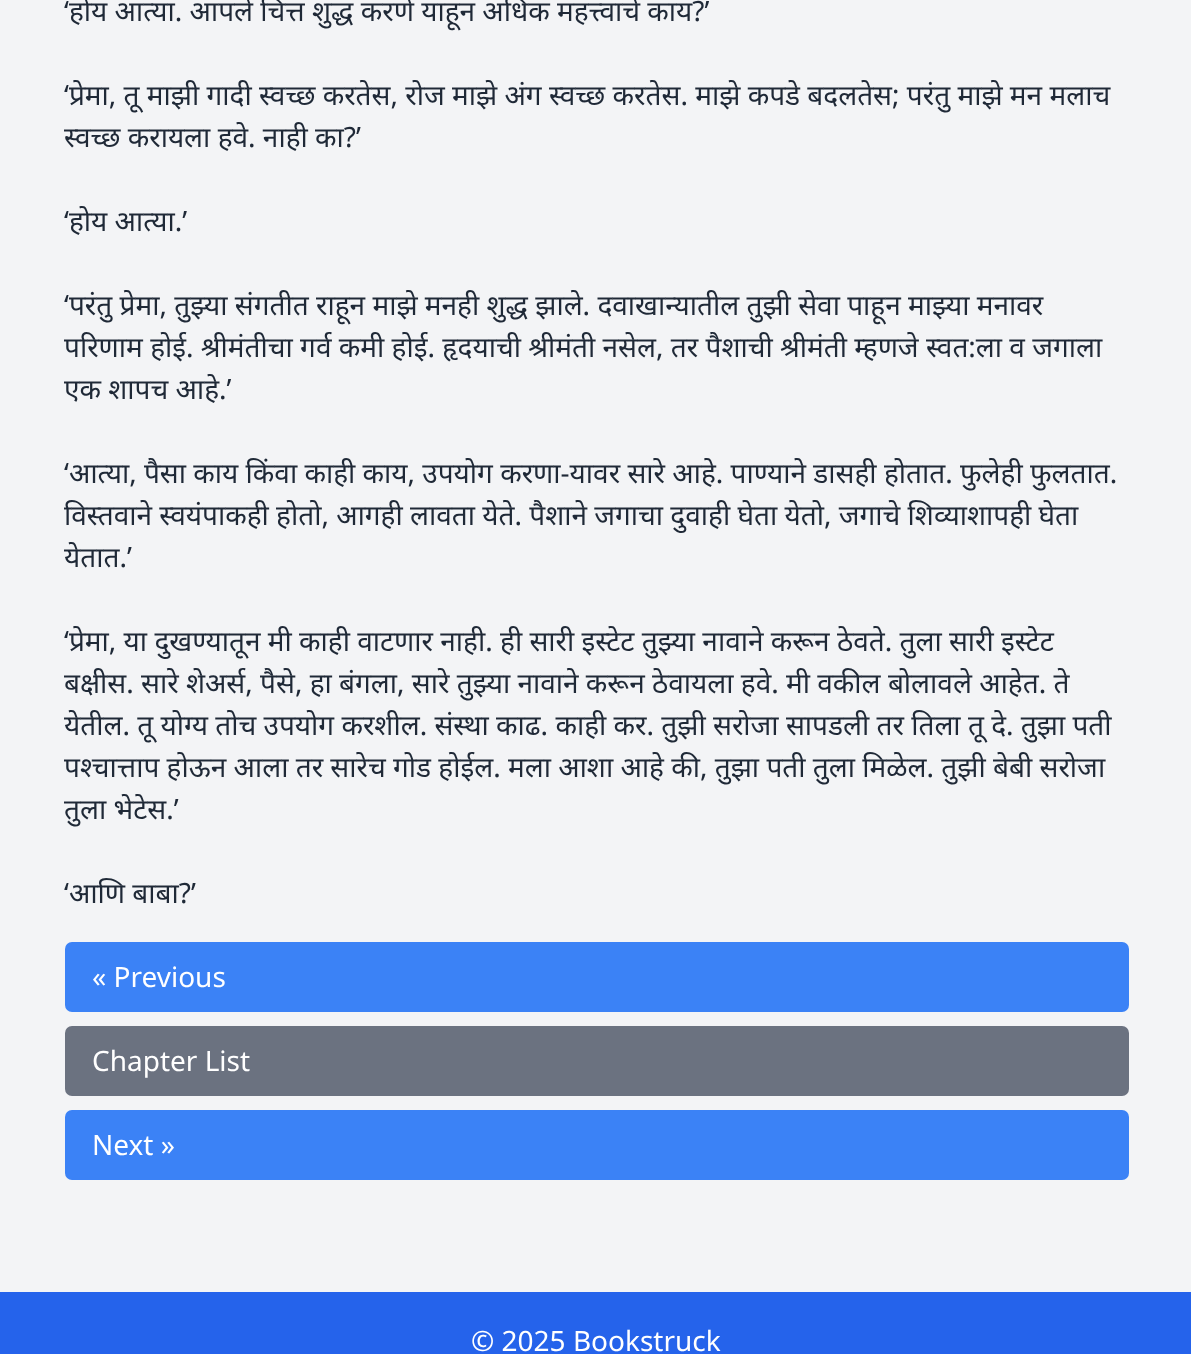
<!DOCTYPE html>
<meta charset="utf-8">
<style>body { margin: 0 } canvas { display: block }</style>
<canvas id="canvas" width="1191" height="1354"></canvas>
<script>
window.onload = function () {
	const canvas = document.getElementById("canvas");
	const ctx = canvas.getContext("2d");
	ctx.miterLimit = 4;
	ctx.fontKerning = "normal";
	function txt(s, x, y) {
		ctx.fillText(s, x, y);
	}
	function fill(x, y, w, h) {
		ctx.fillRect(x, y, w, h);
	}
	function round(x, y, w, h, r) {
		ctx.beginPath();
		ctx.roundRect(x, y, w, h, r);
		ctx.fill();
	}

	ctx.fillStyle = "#F3F4F6";
	fill(0, 0, 1191, 1354);
	ctx.fillStyle = "#3B82F6";
	round(65, 942, 1064, 70, 7);
	ctx.fillStyle = "#6B7280";
	round(65, 1026, 1064, 70, 7);
	ctx.fillStyle = "#3B82F6";
	round(65, 1110, 1064, 70, 7);
	ctx.fillStyle = "#2563EB";
	fill(0, 1292, 1191, 62);
	ctx.font = "28px Noto Sans";
	ctx.fillStyle = "#1F2937";
	txt("‘होय आत्या. आपले चित्त शुद्ध करणे याहून अधिक महत्त्वाचे काय?’", 64, 21);
	txt("‘प्रेमा, तू माझी गादी स्वच्छ करतेस, रोज माझे अंग स्वच्छ करतेस. माझे कपडे बदलतेस; परंतु माझे मन मलाच", 64, 105);
	txt("स्वच्छ करायला हवे. नाही का?’", 64, 147);
	txt("‘होय आत्या.’", 64, 231);
	txt("‘परंतु प्रेमा, तुझ्या संगतीत राहून माझे मनही शुद्ध झाले. दवाखान्यातील तुझी सेवा पाहून माझ्या मनावर", 64, 315);
	txt("परिणाम होई. श्रीमंतीचा गर्व कमी होई. हृदयाची श्रीमंती नसेल, तर पैशाची श्रीमंती म्हणजे स्वत:ला व जगाला", 64, 357);
	txt("एक शापच आहे.’", 64, 399);
	txt("‘आत्या, पैसा काय किंवा काही काय, उपयोग करणा-यावर सारे आहे. पाण्याने डासही होतात. फुलेही फुलतात.", 64, 483);
	txt("विस्तवाने स्वयंपाकही होतो, आगही लावता येते. पैशाने जगाचा दुवाही घेता येतो, जगाचे शिव्याशापही घेता", 64, 525);
	txt("येतात.’", 64, 567);
	txt("‘प्रेमा, या दुखण्यातून मी काही वाटणार नाही. ही सारी इस्टेट तुझ्या नावाने करून ठेवते. तुला सारी इस्टेट", 64, 651);
	txt("बक्षीस. सारे शेअर्स, पैसे, हा बंगला, सारे तुझ्या नावाने करून ठेवायला हवे. मी वकील बोलावले आहेत. ते", 64, 693);
	txt("येतील. तू योग्य तोच उपयोग करशील. संस्था काढ. काही कर. तुझी सरोजा सापडली तर तिला तू दे. तुझा पती", 64, 735);
	txt("पश्चात्ताप होऊन आला तर सारेच गोड होईल. मला आशा आहे की, तुझा पती तुला मिळेल. तुझी बेबी सरोजा", 64, 777);
	txt("तुला भेटेस.’", 64, 819);
	txt("‘आणि बाबा?’", 64, 903);
	ctx.fillStyle = "#FFFFFF";
	txt("« Previous", 92, 987);
	txt("Chapter List", 92, 1071);
	txt("Next »", 92, 1155);
	txt("© 2025 Bookstruck", 471, 1351);
};
</script>
